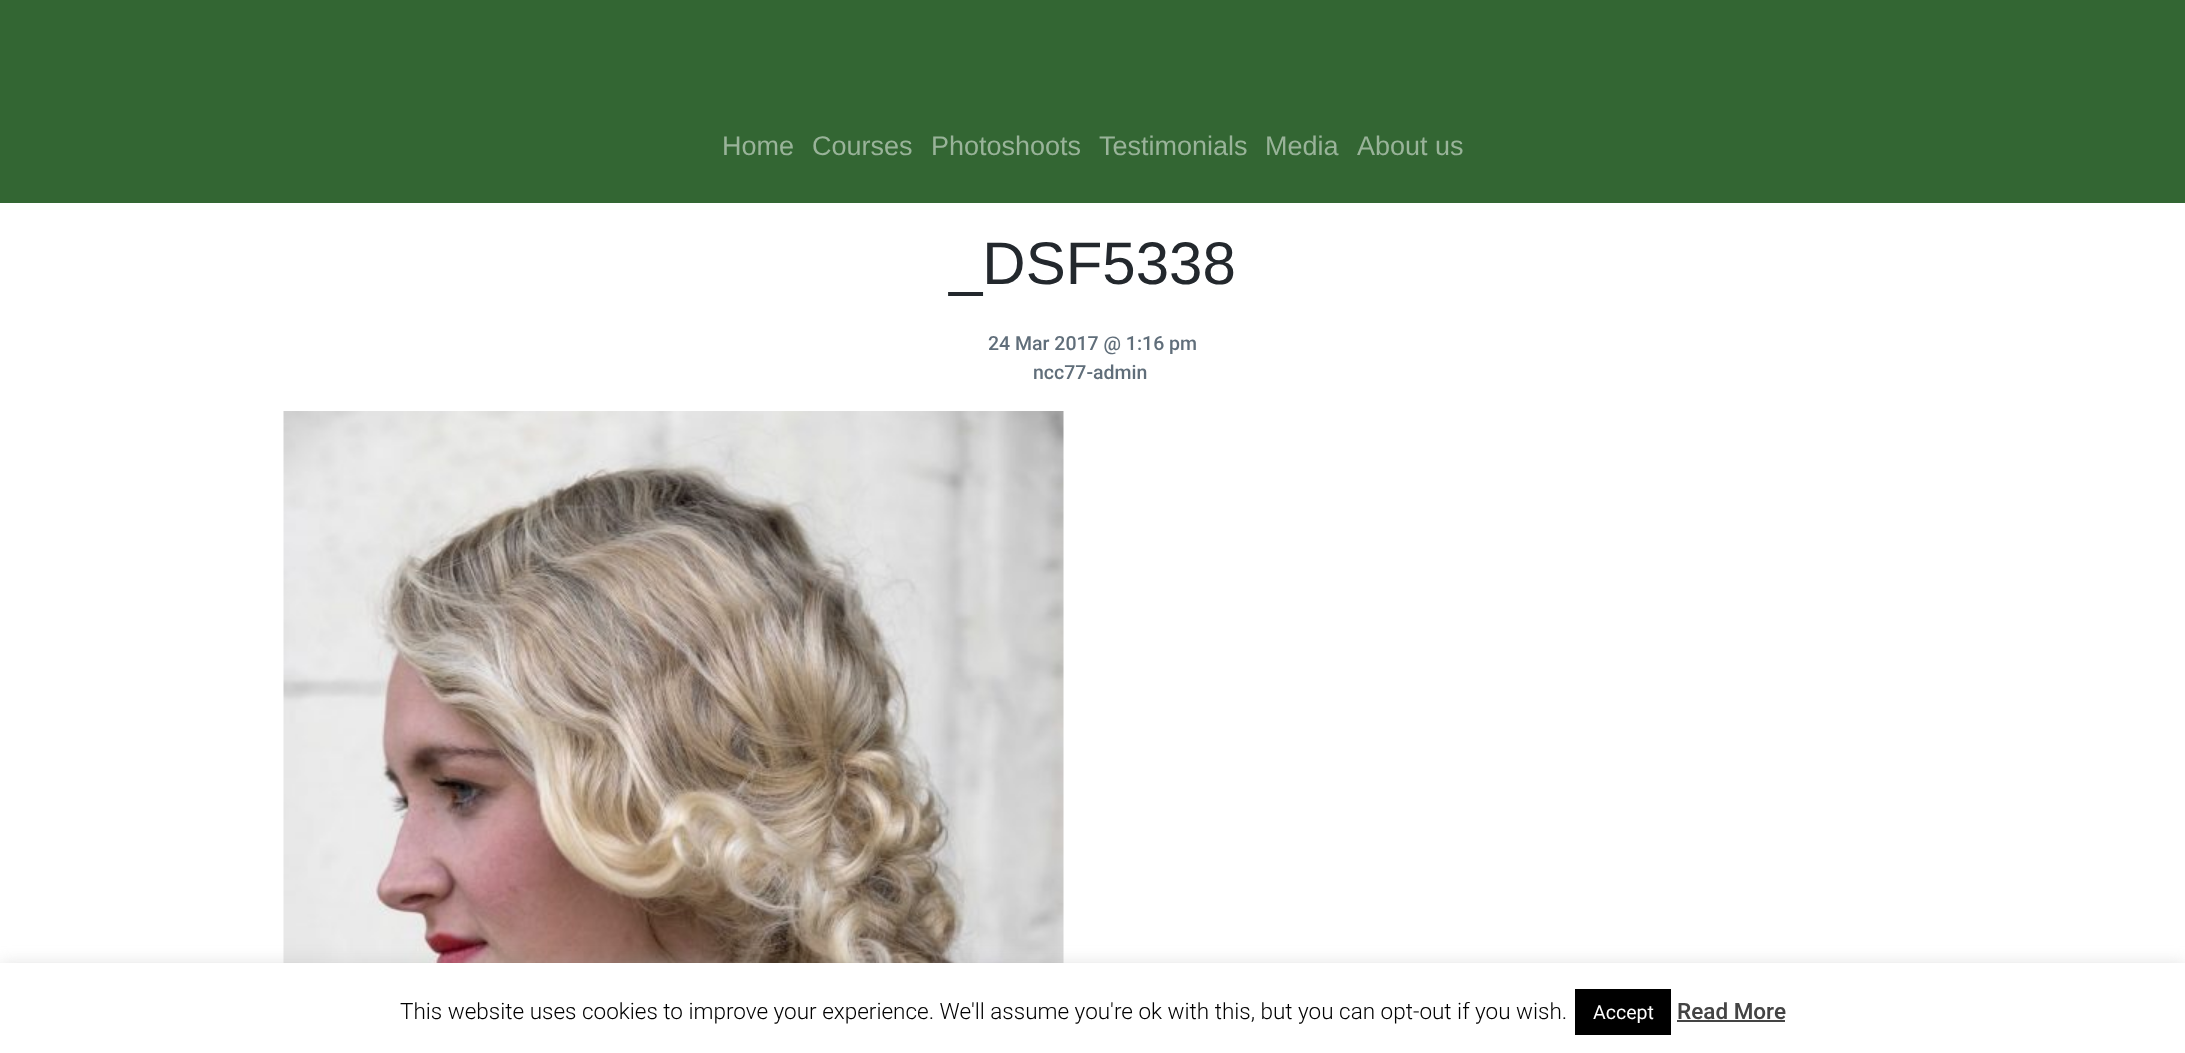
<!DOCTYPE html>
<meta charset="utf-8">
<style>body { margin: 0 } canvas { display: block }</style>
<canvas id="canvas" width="2185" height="1053"></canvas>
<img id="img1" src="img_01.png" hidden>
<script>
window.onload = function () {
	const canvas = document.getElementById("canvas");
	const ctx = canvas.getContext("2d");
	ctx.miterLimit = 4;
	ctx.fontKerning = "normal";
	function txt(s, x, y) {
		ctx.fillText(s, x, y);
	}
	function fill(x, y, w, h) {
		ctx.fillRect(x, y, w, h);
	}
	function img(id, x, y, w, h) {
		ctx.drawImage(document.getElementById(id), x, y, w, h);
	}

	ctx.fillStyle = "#FFFFFF";
	fill(0, 0, 2185, 1053);
	ctx.fillStyle = "#336633";
	fill(0, 0, 2185, 203);
	img("img1", 283, 411, 781, 552);
	ctx.fillStyle = "rgba(172, 171, 171, 0.3)";
	ctx.filter = "blur(7.5px)";
	ctx.beginPath();
	ctx.rect(0, 962, 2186, 90);
	ctx.fill();
	ctx.filter = "none";
	ctx.fillStyle = "#FFFFFF";
	fill(0, 963, 2185, 90);
	ctx.fillStyle = "#000000";
	fill(1575, 989, 96, 46);
	ctx.fillStyle = "#444444";
	fill(1677, 1020, 108, 2);
	ctx.font = "27px Liberation Sans";
	ctx.fillStyle = "#99B399";
	txt("Home", 722, 155);
	txt("Courses", 812, 155);
	txt("Photoshoots", 931, 155);
	txt("Testimonials", 1099, 155);
	txt("Media", 1265, 155);
	txt("About us", 1357, 155);
	ctx.font = "60px Liberation Sans";
	ctx.fillStyle = "#23282D";
	txt("_DSF5338", 949, 284);
	ctx.font = "500 19.5px Roboto";
	ctx.fillStyle = "#606E7A";
	txt("24 Mar 2017 @ 1:16 pm", 988, 350);
	txt("ncc77-admin", 1033, 379);
	ctx.font = "300 22.5px Roboto";
	ctx.fillStyle = "#000000";
	txt("This website uses cookies to improve your experience. We'll assume you're ok with this, but you can opt-out if you wish.", 400, 1019);
	ctx.font = "19.5px Roboto";
	ctx.fillStyle = "#FFFFFF";
	txt("Accept", 1593, 1019);
	ctx.font = "500 22.5px 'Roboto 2'";
	ctx.fillStyle = "#444444";
	txt("Read More", 1677, 1019);
};
</script>
